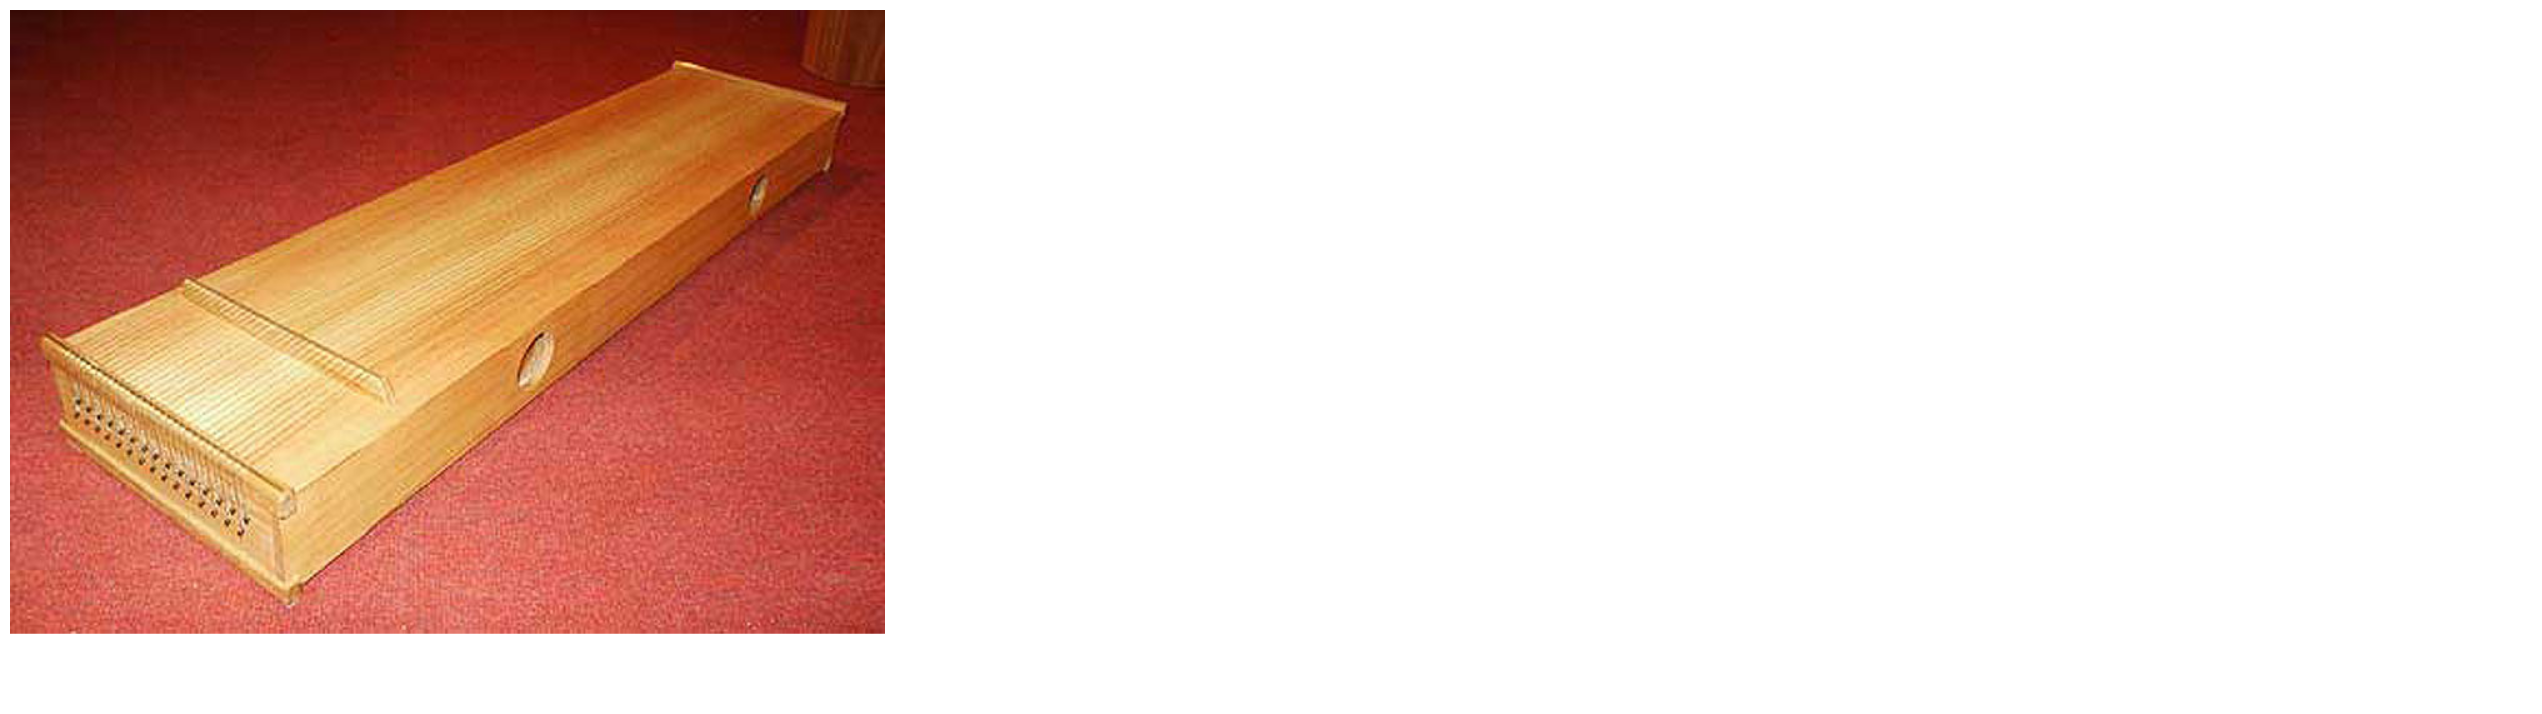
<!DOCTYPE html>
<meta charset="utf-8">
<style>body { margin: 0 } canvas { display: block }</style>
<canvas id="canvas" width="2542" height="714"></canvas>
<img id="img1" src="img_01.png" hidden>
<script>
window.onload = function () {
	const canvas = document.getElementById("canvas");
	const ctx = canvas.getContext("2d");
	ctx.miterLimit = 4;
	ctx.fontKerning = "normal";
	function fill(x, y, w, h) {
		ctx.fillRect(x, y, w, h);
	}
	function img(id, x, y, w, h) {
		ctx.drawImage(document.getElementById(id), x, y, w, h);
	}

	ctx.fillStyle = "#FFFFFF";
	fill(0, 0, 2542, 714);
	img("img1", 10, 10, 875, 624);
};
</script>
